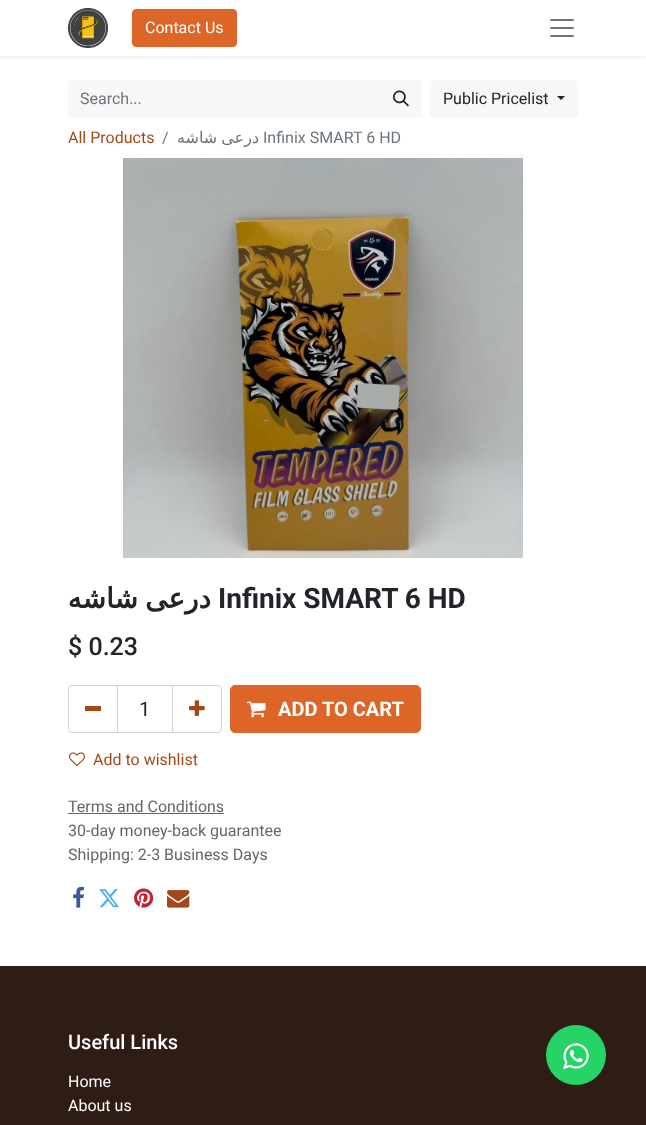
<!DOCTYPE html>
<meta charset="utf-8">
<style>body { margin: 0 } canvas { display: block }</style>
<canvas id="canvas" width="646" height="1125"></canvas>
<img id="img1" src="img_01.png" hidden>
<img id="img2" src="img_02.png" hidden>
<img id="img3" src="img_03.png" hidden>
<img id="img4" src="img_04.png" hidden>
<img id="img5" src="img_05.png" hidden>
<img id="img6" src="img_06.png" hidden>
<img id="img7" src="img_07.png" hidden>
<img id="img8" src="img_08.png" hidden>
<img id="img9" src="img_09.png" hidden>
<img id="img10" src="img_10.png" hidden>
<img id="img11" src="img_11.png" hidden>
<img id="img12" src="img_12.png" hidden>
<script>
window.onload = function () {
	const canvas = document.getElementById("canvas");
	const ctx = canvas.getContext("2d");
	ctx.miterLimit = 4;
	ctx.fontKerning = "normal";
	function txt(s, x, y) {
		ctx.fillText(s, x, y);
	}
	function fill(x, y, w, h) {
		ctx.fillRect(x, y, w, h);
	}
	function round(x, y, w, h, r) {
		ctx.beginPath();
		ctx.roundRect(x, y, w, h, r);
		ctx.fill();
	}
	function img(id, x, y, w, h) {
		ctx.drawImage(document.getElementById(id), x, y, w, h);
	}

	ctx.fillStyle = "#FFFFFF";
	fill(0, 0, 646, 1125);
	ctx.save();
	ctx.beginPath();
	ctx.rect(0, 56, 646, 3);
	ctx.clip();
	ctx.fillStyle = "rgba(0, 0, 0, 0.07)";
	ctx.filter = "blur(2px)";
	ctx.beginPath();
	ctx.rect(0, 2, 646, 56);
	ctx.fill();
	ctx.filter = "none";
	ctx.restore();
	img("img1", 68, 8, 40, 40);
	ctx.fillStyle = "#DE6528";
	ctx.beginPath();
	ctx.roundRect(132.5, 9.5, 104, 37, 3.5);
	ctx.fill();
	ctx.strokeStyle = "#DE6528";
	ctx.stroke();
	img("img2", 550, 19, 24, 18);
	ctx.fillStyle = "#F7F7F7";
	ctx.beginPath();
	ctx.roundRect(68, 80, 313, 38, [4, 0, 0, 4]);
	ctx.fill();
	ctx.beginPath();
	ctx.roundRect(380, 80, 42, 38, [0, 4, 4, 0]);
	ctx.fill();
	img("img3", 393, 90, 16, 17);
	round(430, 80, 148, 38, 4);
	ctx.fillStyle = "#212529";
	ctx.beginPath();
	ctx.moveTo(557, 96);
	ctx.lineTo(565, 96);
	ctx.lineTo(561, 100);
	ctx.closePath();
	ctx.fill();
	img("img4", 123, 158, 400, 400);
	ctx.strokeStyle = "#CED4DA";
	ctx.strokeRect(117.5, 685.5, 55, 47);
	ctx.beginPath();
	ctx.roundRect(68.5, 685.5, 49, 47, [3.5, 0, 0, 3.5]);
	ctx.stroke();
	ctx.fillStyle = "#A54819";
	fill(85, 706, 16, 5);
	ctx.beginPath();
	ctx.roundRect(172.5, 685.5, 49, 47, [0, 3.5, 3.5, 0]);
	ctx.stroke();
	img("img5", 189, 700, 16, 16);
	ctx.fillStyle = "#DE6528";
	ctx.beginPath();
	ctx.roundRect(230.5, 685.5, 190, 47, 4.5);
	ctx.fill();
	ctx.strokeStyle = "#DE6528";
	ctx.stroke();
	img("img6", 247, 701, 19, 17);
	img("img7", 69, 752, 16, 15);
	ctx.fillStyle = "#646669";
	fill(68, 813, 156, 1);
	img("img8", 73, 886, 11, 22);
	img("img9", 99, 889, 20, 19);
	img("img10", 134, 888, 20, 20);
	img("img11", 167, 890, 23, 18);
	ctx.fillStyle = "#2E1D14";
	fill(0, 966, 646, 159);
	ctx.fillStyle = "#25D366";
	ctx.beginPath();
	ctx.arc(576, 1055, 30, 0, Math.PI * 2);
	ctx.fill();
	img("img12", 563, 1043, 26, 27);
	ctx.font = "16px Roboto";
	ctx.fillStyle = "#FFFFFF";
	txt("Contact Us", 145, 33);
	ctx.fillStyle = "#6C757D";
	txt("Search...", 80, 104);
	ctx.fillStyle = "#212529";
	txt("Public Pricelist", 443, 104);
	ctx.fillStyle = "#A54819";
	txt("All Products", 68, 143);
	ctx.fillStyle = "#6C757D";
	txt("/", 162, 143);
	ctx.wordSpacing = "-1px";
	ctx.direction = "rtl";
	ctx.font = "16px DejaVu Sans";
	txt("درعی شاشە", 259, 143);
	ctx.wordSpacing = "0px";
	ctx.direction = "ltr";
	ctx.font = "16px Roboto";
	txt("Infinix SMART 6 HD", 263, 143);
	ctx.wordSpacing = "-2px";
	ctx.direction = "rtl";
	ctx.font = "bold 28px DejaVu Sans";
	ctx.fillStyle = "#212529";
	txt("درعی شاشە", 211, 608);
	ctx.wordSpacing = "0px";
	ctx.direction = "ltr";
	ctx.font = "bold 28px Roboto";
	txt("Infinix SMART 6 HD", 218, 608);
	ctx.font = "500 25px Roboto";
	txt("$ 0.23", 68, 655);
	ctx.font = "20px Roboto";
	txt("1", 139, 716);
	ctx.font = "bold 20px Roboto";
	ctx.fillStyle = "#FFFFFF";
	txt("ADD TO CART", 278, 716);
	ctx.font = "16px Roboto";
	ctx.fillStyle = "#A54819";
	txt("Add to wishlist", 93, 765);
	ctx.fillStyle = "#646669";
	txt("Terms and Conditions", 68, 812);
	txt("30-day money-back guarantee", 68, 836);
	txt("Shipping: 2-3 Business Days", 68, 860);
	ctx.font = "500 20px Roboto";
	ctx.fillStyle = "#FFFFFF";
	txt("Useful Links", 68, 1049);
	ctx.font = "16px Roboto";
	txt("Home", 68, 1087);
	txt("About us", 68, 1111);
};
</script>
